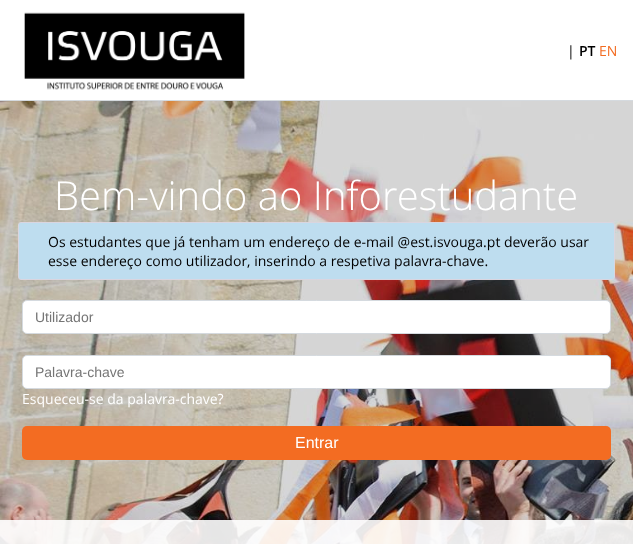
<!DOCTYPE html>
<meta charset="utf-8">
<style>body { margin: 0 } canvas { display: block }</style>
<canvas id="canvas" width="633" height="544"></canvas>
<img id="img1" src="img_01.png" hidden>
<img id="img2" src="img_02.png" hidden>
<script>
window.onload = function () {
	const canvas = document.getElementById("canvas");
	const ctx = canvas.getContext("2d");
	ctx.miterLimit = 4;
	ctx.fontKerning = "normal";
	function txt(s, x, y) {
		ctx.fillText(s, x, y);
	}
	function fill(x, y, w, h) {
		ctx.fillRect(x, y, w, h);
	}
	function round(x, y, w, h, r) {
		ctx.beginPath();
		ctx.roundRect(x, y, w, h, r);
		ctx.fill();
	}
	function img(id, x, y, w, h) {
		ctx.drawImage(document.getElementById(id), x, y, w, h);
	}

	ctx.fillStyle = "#FFFFFF";
	fill(0, 0, 633, 544);
	ctx.fillStyle = "#D5DADF";
	fill(0, 100, 633, 1);
	img("img1", 24, 12, 221, 78);
	img("img2", 0, 101, 633, 443);
	ctx.fillStyle = "rgba(0, 0, 0, 0.15)";
	fill(0, 101, 633, 16);
	ctx.fillStyle = "#BEDDEF";
	ctx.beginPath();
	ctx.roundRect(18.5, 222.5, 596, 57, 2.5);
	ctx.fill();
	ctx.strokeStyle = "#DAD5DF";
	ctx.stroke();
	ctx.fillStyle = "#FFFFFF";
	ctx.beginPath();
	ctx.roundRect(22.5, 300.5, 588, 33, 4.5);
	ctx.fill();
	ctx.strokeStyle = "#D5DADF";
	ctx.stroke();
	ctx.beginPath();
	ctx.roundRect(22.5, 355.5, 588, 33, 4.5);
	ctx.fill();
	ctx.stroke();
	ctx.fillStyle = "#F36C22";
	round(22, 426, 589, 34, 5);
	ctx.fillStyle = "rgba(255, 255, 255, 0.9)";
	fill(0, 520, 633, 24);
	ctx.font = "14px Open Sans";
	ctx.fillStyle = "#000000";
	txt("|", 567, 56);
	ctx.font = "600 14px Open Sans";
	txt("PT", 579, 56);
	ctx.font = "14px Open Sans";
	ctx.fillStyle = "#F36C22";
	txt("EN", 599, 56);
	ctx.font = "300 40px Open Sans";
	ctx.fillStyle = "#FFFFFF";
	txt("Bem-vindo ao Inforestudante", 54, 210);
	ctx.font = "14px Open Sans";
	ctx.fillStyle = "#000000";
	txt("Os estudantes que já tenham um endereço de e-mail @est.isvouga.pt deverão usar", 48, 247);
	txt("esse endereço como utilizador, inserindo a respetiva palavra-chave.", 48, 266);
	ctx.font = "14px Liberation Sans";
	ctx.fillStyle = "#757575";
	txt("Utilizador", 35, 322);
	txt("Palavra-chave", 35, 377);
	ctx.font = "14px Open Sans";
	ctx.fillStyle = "#FFFFFF";
	txt("Esqueceu-se da palavra-chave?", 22, 404);
	ctx.font = "16px Liberation Sans";
	txt("Entrar", 295, 448);
};
</script>
